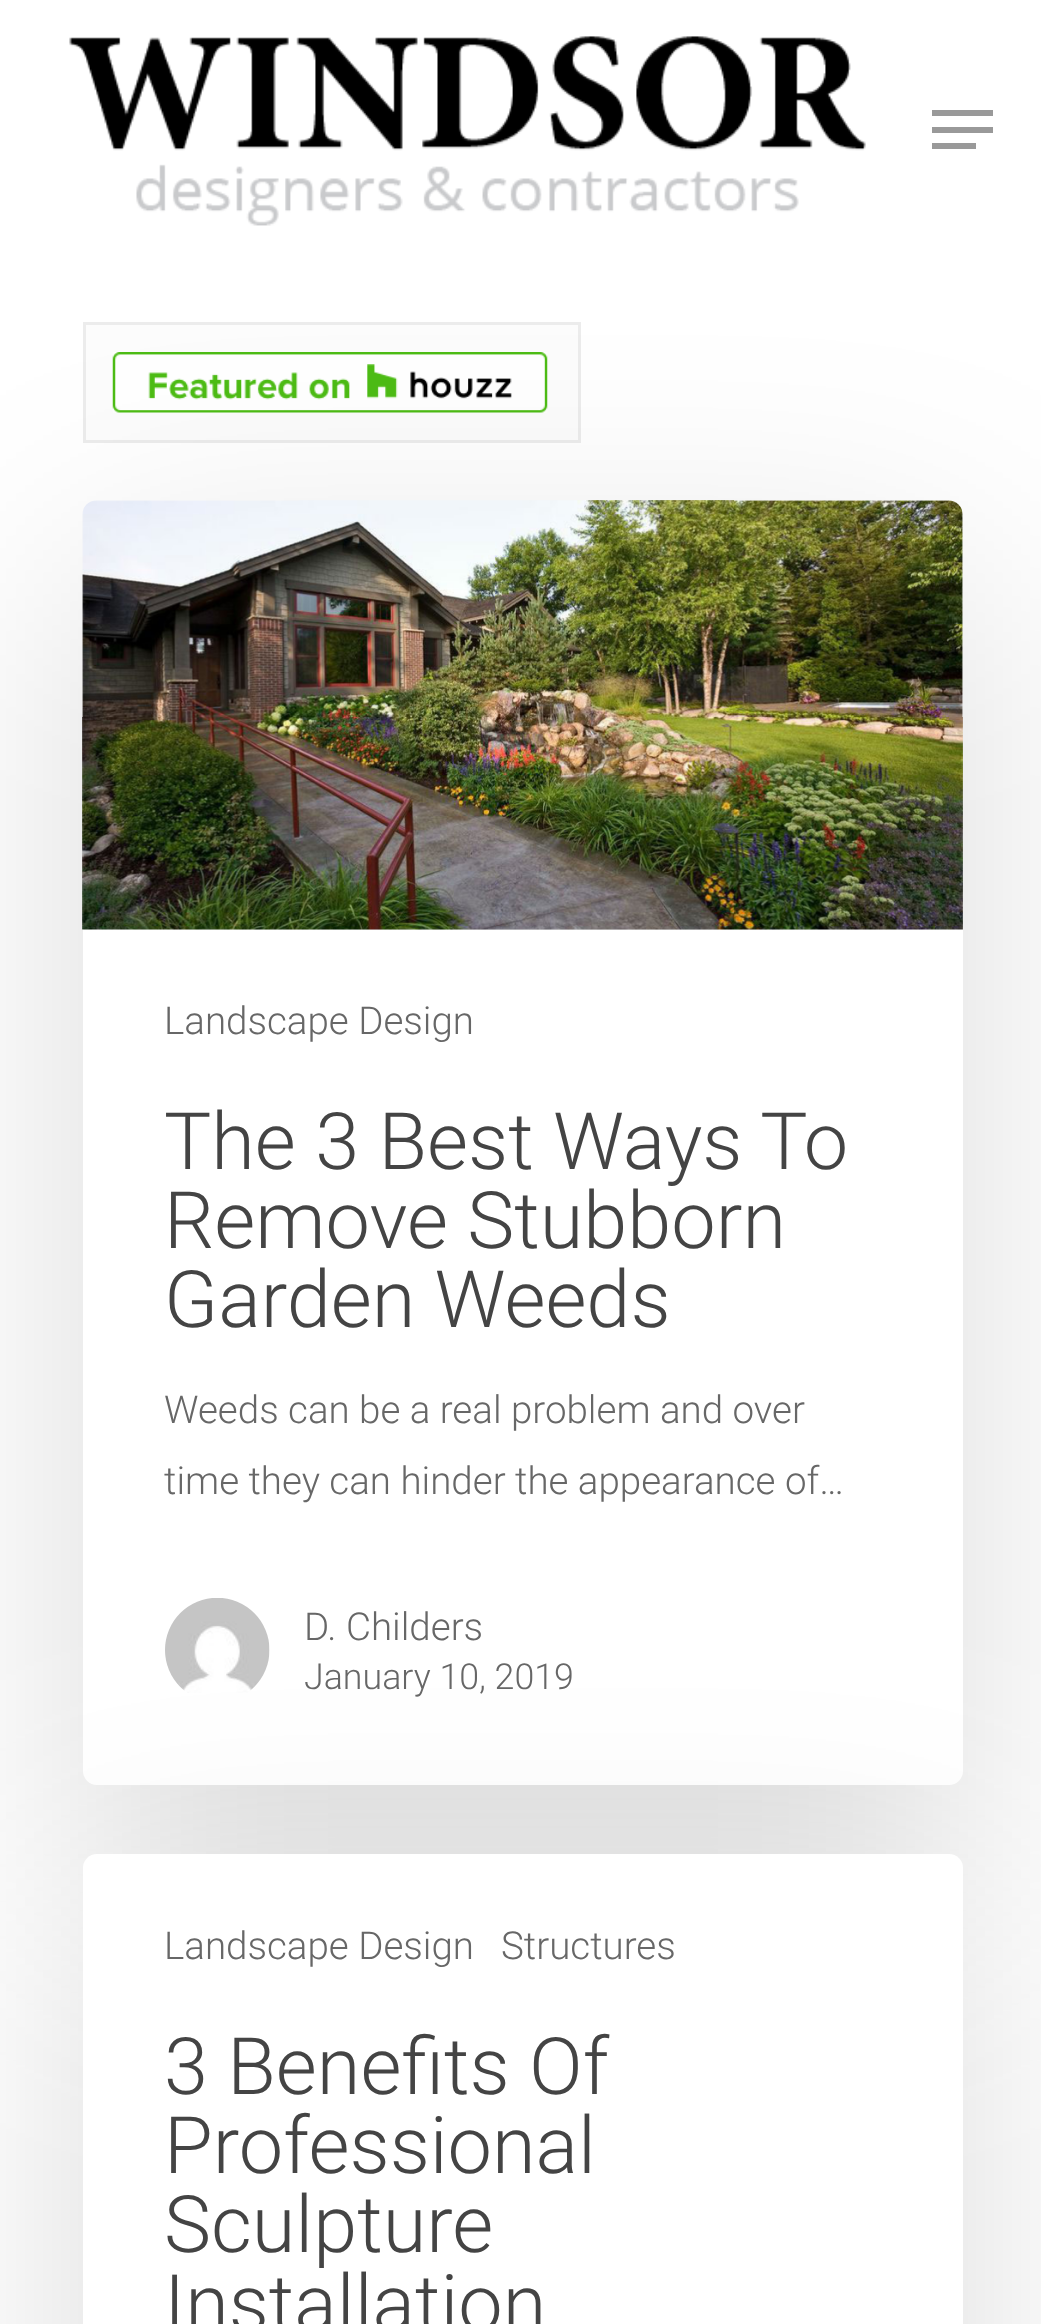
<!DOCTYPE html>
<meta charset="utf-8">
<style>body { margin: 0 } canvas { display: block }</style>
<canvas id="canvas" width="1041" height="2324"></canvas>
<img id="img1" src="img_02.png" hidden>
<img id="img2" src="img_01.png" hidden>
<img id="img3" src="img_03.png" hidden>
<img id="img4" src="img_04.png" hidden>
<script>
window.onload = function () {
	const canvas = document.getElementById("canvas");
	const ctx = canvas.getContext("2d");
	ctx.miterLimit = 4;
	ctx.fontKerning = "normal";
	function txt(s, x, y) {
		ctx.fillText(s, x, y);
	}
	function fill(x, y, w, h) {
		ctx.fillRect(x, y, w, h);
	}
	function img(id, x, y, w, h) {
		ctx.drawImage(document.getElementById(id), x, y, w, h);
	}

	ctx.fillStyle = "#FFFFFF";
	fill(0, 0, 1041, 2324);
	ctx.fillStyle = "#ECECEC";
	fill(83, 322, 497, 3);
	ctx.fillStyle = "#FCFCFC";
	fill(86, 325, 492, 115);
	ctx.fillStyle = "#ECECEC";
	fill(578, 322, 3, 121);
	fill(83, 440, 497, 3);
	fill(83, 322, 3, 121);
	img("img1", 112, 352, 436, 61);
	ctx.fillStyle = "rgba(0, 0, 0, 0.14)";
	ctx.filter = "blur(124px)";
	ctx.beginPath();
	ctx.roundRect(83, 583, 880, 1284, 14);
	ctx.fill();
	ctx.filter = "none";
	img("img2", 69, 36, 797, 190);
	ctx.fillStyle = "#999999";
	fill(932, 110, 61, 6);
	fill(932, 143, 44, 6);
	fill(932, 127, 61, 6);
	img("img3", 82, 500, 881, 430);
	ctx.fillStyle = "#FFFFFF";
	fill(83, 930, 880, 145);
	ctx.beginPath();
	ctx.roundRect(83, 1075, 880, 710, [0, 0, 14, 14]);
	ctx.fill();
	img("img4", 165, 1598, 105, 95);
	ctx.fillStyle = "rgba(0, 0, 0, 0.14)";
	ctx.filter = "blur(124px)";
	ctx.beginPath();
	ctx.roundRect(83, 1936, 880, 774, 14);
	ctx.fill();
	ctx.filter = "none";
	ctx.fillStyle = "#FFFFFF";
	ctx.beginPath();
	ctx.roundRect(83, 1854, 880, 145, [14, 14, 0, 0]);
	ctx.fill();
	fill(83, 1999, 880, 325);
	ctx.font = "300 38.5px Roboto";
	ctx.fillStyle = "#676767";
	txt("Landscape Design", 164, 1034);
	ctx.font = "300 79.25px Roboto";
	ctx.fillStyle = "#444444";
	txt("The 3 Best Ways To", 164, 1169);
	txt("Remove Stubborn", 164, 1248);
	txt("Garden Weeds", 164, 1327);
	ctx.font = "300 38.5px Roboto";
	ctx.fillStyle = "#676767";
	txt("Weeds can be a real problem and over", 164, 1423);
	txt("time they can hinder the appearance of…", 164, 1494);
	txt("D. Childers", 304, 1640);
	ctx.font = "300 35.75px Roboto";
	txt("January 10, 2019", 304, 1689);
	ctx.font = "300 38.5px Roboto";
	txt("Landscape Design", 164, 1959);
	txt("Structures", 501, 1959);
	ctx.font = "300 79.25px Roboto";
	ctx.fillStyle = "#444444";
	txt("3 Benefits Of", 164, 2094);
	txt("Professional", 164, 2173);
	txt("Sculpture", 164, 2252);
	txt("Installation", 164, 2331);
};
</script>
